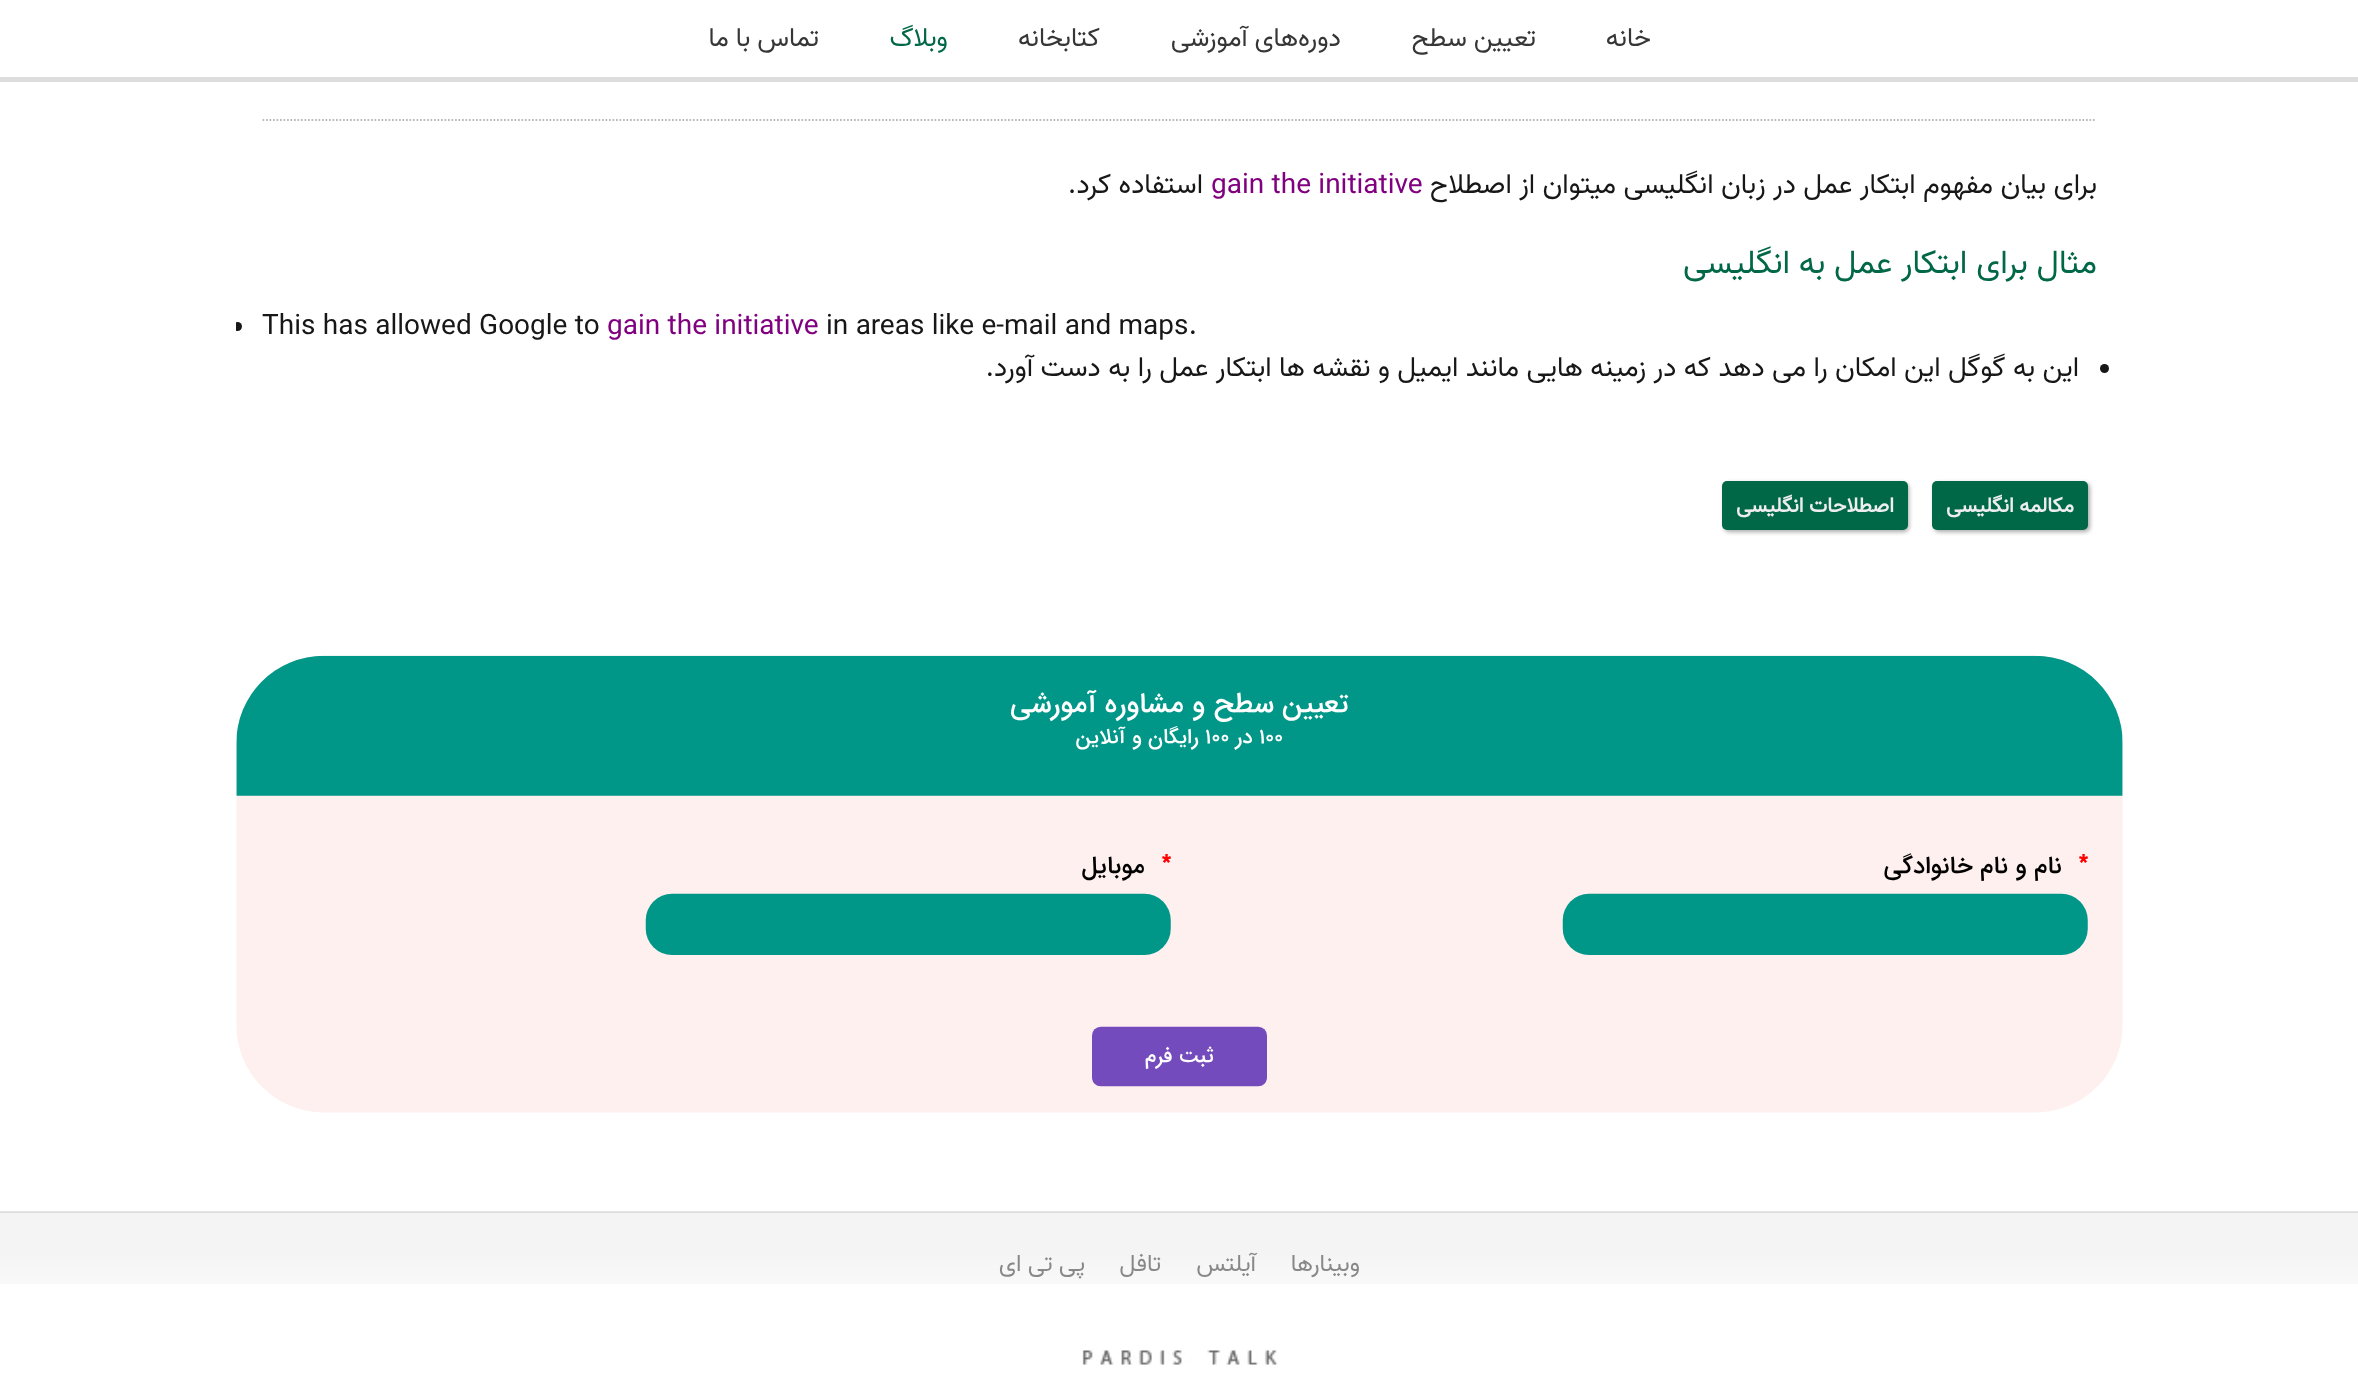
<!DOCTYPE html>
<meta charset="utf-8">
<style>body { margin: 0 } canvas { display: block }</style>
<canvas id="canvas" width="2358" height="1388"></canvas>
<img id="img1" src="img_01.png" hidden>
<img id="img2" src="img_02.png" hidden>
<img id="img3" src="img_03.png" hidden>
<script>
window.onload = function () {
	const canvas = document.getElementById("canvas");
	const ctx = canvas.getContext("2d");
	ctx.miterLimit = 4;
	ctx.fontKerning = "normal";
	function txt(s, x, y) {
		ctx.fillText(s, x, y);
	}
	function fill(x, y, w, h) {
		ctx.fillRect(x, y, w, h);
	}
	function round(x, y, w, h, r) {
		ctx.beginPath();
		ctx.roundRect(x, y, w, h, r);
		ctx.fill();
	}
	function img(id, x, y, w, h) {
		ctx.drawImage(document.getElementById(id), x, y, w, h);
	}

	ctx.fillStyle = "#FFFFFF";
	fill(0, 0, 2358, 1388);
	ctx.fillStyle = "#DDDDDD";
	fill(0, 77, 2358, 5);
	ctx.beginPath();
	ctx.moveTo(262.5, 120);
	ctx.lineTo(2096.5, 120);
	ctx.strokeStyle = "#BBBBBB";
	ctx.lineWidth = 1.8;
	ctx.setLineDash([1.75, 1.75]);
	ctx.stroke();
	ctx.save();
	ctx.beginPath();
	ctx.rect(236, 0, 1887, 602);
	ctx.clip();
	ctx.fillStyle = "#171717";
	ctx.beginPath();
	ctx.arc(237.5, 326.5, 4.5, 0, Math.PI * 2);
	ctx.fill();
	ctx.restore();
	ctx.fillStyle = "#171717";
	ctx.beginPath();
	ctx.arc(2104.5, 368.5, 4.5, 0, Math.PI * 2);
	ctx.fill();
	ctx.fillStyle = "#AAAAAA";
	ctx.filter = "blur(2px)";
	ctx.beginPath();
	ctx.roundRect(1934, 483, 156, 49, 5);
	ctx.fill();
	ctx.filter = "none";
	ctx.fillStyle = "#006747";
	round(1932, 481, 156, 49, 5);
	ctx.fillStyle = "#AAAAAA";
	ctx.filter = "blur(2px)";
	ctx.beginPath();
	ctx.roundRect(1724, 483, 185, 49, 5);
	ctx.fill();
	ctx.filter = "none";
	ctx.fillStyle = "#006747";
	round(1722, 481, 186, 49, 5);
	img("img1", 236, 655, 1887, 458);
	img("img2", 0, 1212, 2358, 72);
	ctx.fillStyle = "rgba(0, 0, 0, 0.1)";
	fill(0, 1211, 2358, 2);
	img("img3", 1082, 1350, 196, 15);
	ctx.direction = "rtl";
	ctx.font = "26.5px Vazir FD";
	ctx.fillStyle = "#363636";
	txt("خانه", 1651, 46);
	txt("تعیین سطح", 1536, 46);
	txt("دوره‌های آموزشی", 1341, 46);
	txt("کتابخانه", 1100, 46);
	ctx.fillStyle = "#006747";
	txt("وبلاگ", 948, 46);
	ctx.fillStyle = "#363636";
	txt("تماس با ما", 819, 46);
	ctx.font = "28px Vazir FD";
	ctx.fillStyle = "#171717";
	txt("برای بیان مفهوم ابتکار عمل در زبان انگلیسی میتوان از اصطلاح", 2097, 193);
	ctx.direction = "ltr";
	ctx.fillStyle = "#800080";
	txt("gain the initiative", 1211, 193);
	ctx.direction = "rtl";
	ctx.fillStyle = "#171717";
	txt("استفاده کرد.", 1203, 193);
	ctx.font = "33.25px Vazir FD";
	ctx.fillStyle = "#006747";
	txt("مثال برای ابتکار عمل به انگلیسی", 2097, 273);
	ctx.direction = "ltr";
	ctx.font = "28px Vazir FD";
	ctx.fillStyle = "#171717";
	txt("in areas like e-mail and maps.", 826, 334);
	ctx.fillStyle = "#800080";
	txt("gain the initiative", 607, 334);
	ctx.fillStyle = "#171717";
	txt("This has allowed Google to", 262, 334);
	ctx.direction = "rtl";
	txt("این به گوگل این امکان را می دهد که در زمینه هایی مانند ایمیل و نقشه ها ابتکار عمل را به دست آورد.", 2079, 376);
	ctx.font = "bold 21px Vazir FD";
	ctx.fillStyle = "#EEEEEE";
	txt("مکالمه انگلیسی", 2074, 512);
	txt("اصطلاحات انگلیسی", 1894, 512);
	ctx.font = "24px Vazir FD";
	ctx.fillStyle = "#888888";
	txt("وبینارها", 1360, 1271);
	txt("آیلتس", 1256, 1271);
	txt("تافل", 1161, 1271);
	txt("پی تی ای", 1085, 1271);
};
</script>
